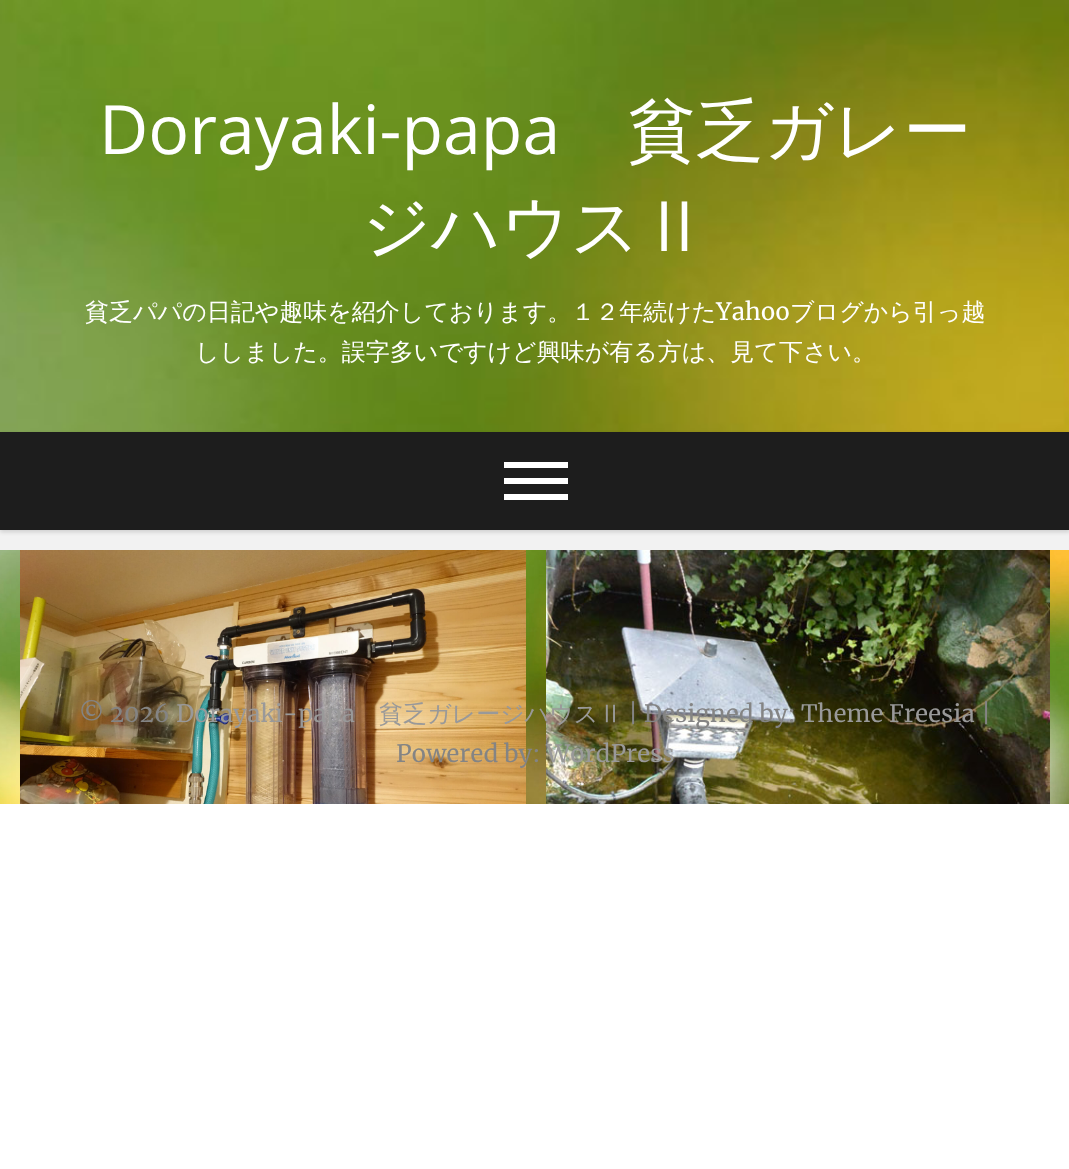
<!DOCTYPE html>
<meta charset="utf-8">
<style>body { margin: 0 } canvas { display: block }</style>
<canvas id="canvas" width="1069" height="1169"></canvas>
<img id="img1" src="img_01.png" hidden>
<img id="img2" src="img_04.png" hidden>
<img id="img3" src="img_02.png" hidden>
<img id="img4" src="img_03.png" hidden>
<script>
window.onload = function () {
	const canvas = document.getElementById("canvas");
	const ctx = canvas.getContext("2d");
	ctx.miterLimit = 4;
	ctx.fontKerning = "normal";
	function txt(s, x, y) {
		ctx.fillText(s, x, y);
	}
	function fill(x, y, w, h) {
		ctx.fillRect(x, y, w, h);
	}
	function img(id, x, y, w, h) {
		ctx.drawImage(document.getElementById(id), x, y, w, h);
	}

	ctx.fillStyle = "#FFFFFF";
	fill(0, 0, 1069, 1169);
	img("img1", 0, 0, 1069, 432);
	ctx.fillStyle = "#F2F2F2";
	fill(0, 530, 1069, 20);
	ctx.fillStyle = "rgba(0, 0, 0, 0.15)";
	ctx.filter = "blur(2px)";
	ctx.beginPath();
	ctx.rect(0, 434, 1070, 98);
	ctx.fill();
	ctx.filter = "none";
	ctx.fillStyle = "#1D1D1D";
	fill(0, 432, 1069, 98);
	ctx.fillStyle = "#FFFFFF";
	fill(504, 462, 64, 6);
	fill(504, 478, 64, 6);
	fill(504, 494, 64, 6);
	img("img2", 0, 550, 1069, 254);
	img("img3", 20, 550, 506, 254);
	img("img4", 546, 550, 504, 254);
	ctx.font = "68px Open Sans";
	txt("Dorayaki-papa", 99, 154);
	ctx.font = "500 68px WenQuanYi Zen Hei";
	txt("貧乏ガレー", 628, 154);
	txt("ジハウスⅡ", 362, 250);
	ctx.font = "500 24px WenQuanYi Zen Hei";
	txt("貧乏パパの日記や趣味を紹介しております。１２年続けた", 85, 320);
	ctx.font = "24px Merriweather";
	txt("Yahoo", 716, 320);
	ctx.font = "500 24px WenQuanYi Zen Hei";
	txt("ブログから引っ越", 790, 320);
	txt("ししました。誤字多いですけど興味が有る方は、見て下さい。", 195, 360);
	ctx.font = "24px Merriweather";
	ctx.fillStyle = "#848484";
	txt("© 2026", 79, 722);
	ctx.fillStyle = "#999999";
	txt("Dorayaki-papa", 176, 722);
	ctx.font = "500 24px WenQuanYi Zen Hei";
	txt("貧乏ガレージハウスⅡ", 379, 722);
	ctx.font = "24px Merriweather";
	ctx.fillStyle = "#848484";
	txt("| Designed by:", 628, 722);
	ctx.fillStyle = "#999999";
	txt("Theme Freesia", 801, 722);
	ctx.fillStyle = "#848484";
	txt("|", 981, 722);
	txt("Powered by:", 396, 762);
	ctx.fillStyle = "#999999";
	txt("WordPress", 546, 762);
};
</script>
